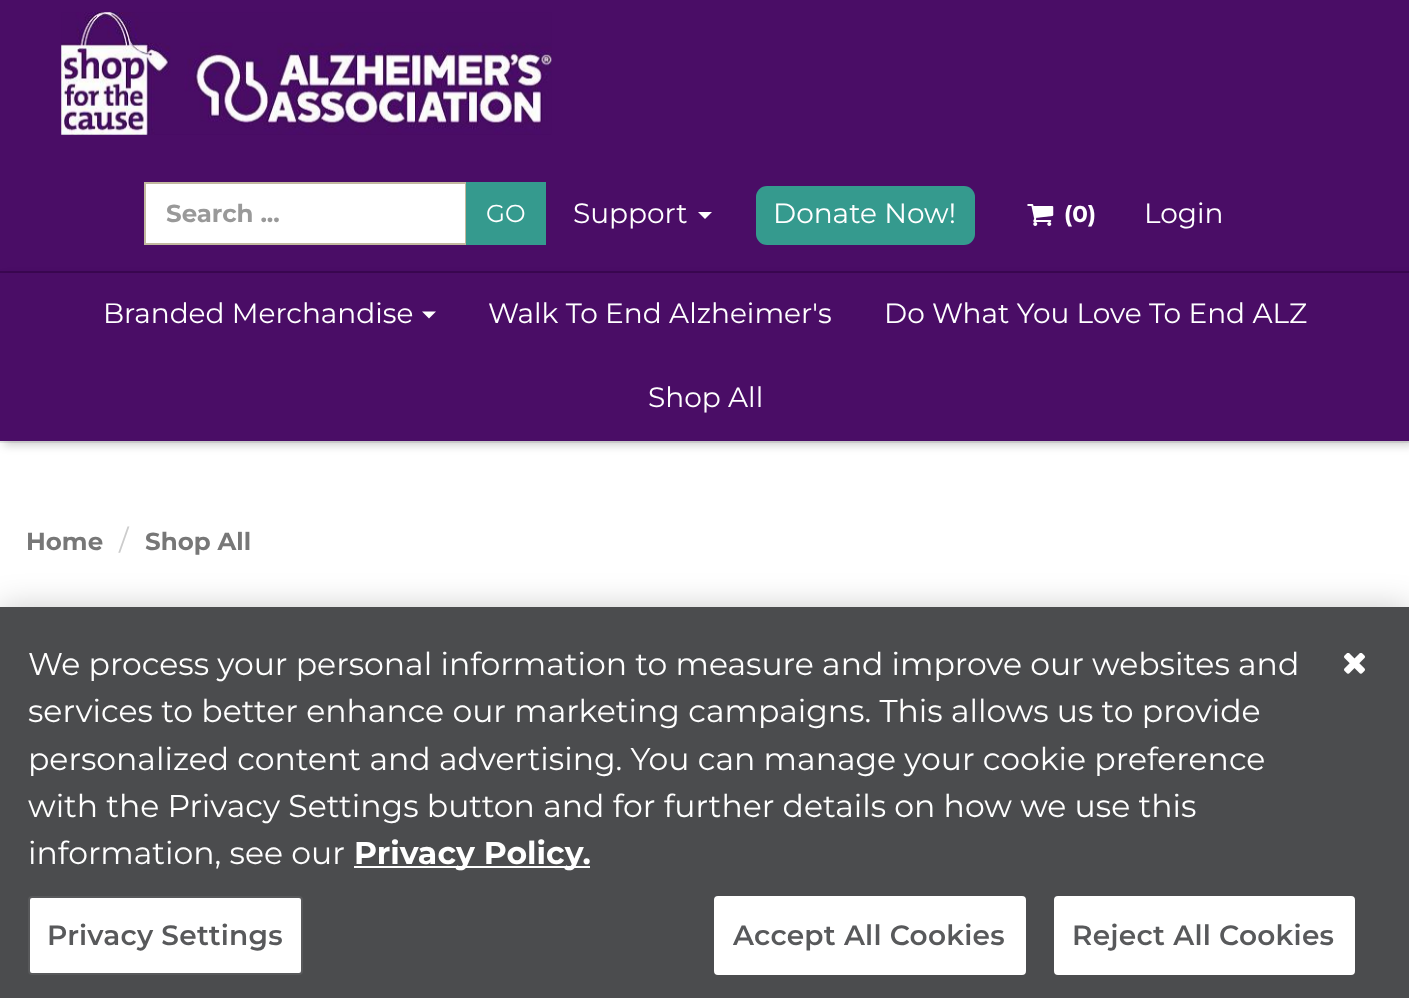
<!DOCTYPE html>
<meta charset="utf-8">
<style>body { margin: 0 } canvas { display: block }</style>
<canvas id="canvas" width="1409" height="998"></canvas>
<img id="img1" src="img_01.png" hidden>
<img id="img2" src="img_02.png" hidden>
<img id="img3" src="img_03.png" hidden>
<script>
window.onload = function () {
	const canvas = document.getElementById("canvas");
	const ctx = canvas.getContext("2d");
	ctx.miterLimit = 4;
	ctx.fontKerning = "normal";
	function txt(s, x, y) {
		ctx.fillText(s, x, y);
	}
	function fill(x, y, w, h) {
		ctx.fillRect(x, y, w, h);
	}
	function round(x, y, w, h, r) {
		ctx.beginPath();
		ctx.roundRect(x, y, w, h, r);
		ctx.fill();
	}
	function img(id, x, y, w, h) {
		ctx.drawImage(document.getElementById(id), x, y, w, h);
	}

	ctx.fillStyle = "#FFFFFF";
	fill(0, 0, 1409, 998);
	ctx.fillStyle = "#4A0D66";
	fill(0, 0, 1409, 441);
	img("img1", 61, 12, 491, 123);
	ctx.fillStyle = "#FFFFFF";
	ctx.beginPath();
	ctx.rect(145, 183, 321, 61);
	ctx.fill();
	ctx.strokeStyle = "#C2B99F";
	ctx.lineWidth = 2;
	ctx.stroke();
	ctx.fillStyle = "#359A8E";
	fill(466, 182, 80, 63);
	ctx.fillStyle = "#FFFFFF";
	ctx.beginPath();
	ctx.moveTo(698, 212);
	ctx.lineTo(712, 212);
	ctx.lineTo(705, 219);
	ctx.closePath();
	ctx.fill();
	ctx.fillStyle = "#359A8E";
	round(756, 186, 219, 59, 11);
	img("img2", 1027, 204, 27, 22);
	ctx.fillStyle = "#3B0752";
	fill(0, 271, 1409, 2);
	ctx.fillStyle = "#EBEBEB";
	fill(0, 441, 1409, 2);
	ctx.save();
	ctx.beginPath();
	ctx.moveTo(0, 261);
	ctx.lineTo(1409, 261);
	ctx.lineTo(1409, 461);
	ctx.lineTo(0, 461);
	ctx.closePath();
	ctx.moveTo(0, 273);
	ctx.lineTo(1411, 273);
	ctx.lineTo(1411, 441);
	ctx.lineTo(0, 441);
	ctx.closePath();
	ctx.clip("evenodd");
	ctx.fillStyle = "rgba(0, 0, 0, 0.2)";
	ctx.filter = "blur(5px)";
	ctx.beginPath();
	ctx.rect(4, 277, 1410, 168);
	ctx.fill();
	ctx.filter = "none";
	ctx.restore();
	ctx.fillStyle = "#FFFFFF";
	ctx.beginPath();
	ctx.moveTo(422, 311.5);
	ctx.lineTo(436, 311.5);
	ctx.lineTo(429, 318.5);
	ctx.closePath();
	ctx.fill();
	ctx.fillStyle = "rgba(0, 0, 0, 0.2)";
	ctx.filter = "blur(16px)";
	ctx.beginPath();
	ctx.rect(0, 607, 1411, 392);
	ctx.fill();
	ctx.filter = "none";
	ctx.fillStyle = "#4B4C4E";
	fill(0, 607, 1409, 391);
	ctx.fillStyle = "#FFFFFF";
	fill(354, 866, 236, 2);
	ctx.beginPath();
	ctx.roundRect(29, 897, 273, 77, 3);
	ctx.fill();
	ctx.strokeStyle = "#58595B";
	ctx.stroke();
	ctx.beginPath();
	ctx.roundRect(715, 897, 310, 77, 3);
	ctx.fill();
	ctx.strokeStyle = "#FFFFFF";
	ctx.stroke();
	ctx.beginPath();
	ctx.roundRect(1055, 897, 299, 77, 3);
	ctx.fill();
	ctx.stroke();
	img("img3", 1344, 653, 21, 21);
	ctx.font = "bold 24.5px Montserrat";
	ctx.fillStyle = "#999999";
	txt("Search ...", 166, 222);
	ctx.font = "24.5px Montserrat";
	ctx.fillStyle = "#FFFFFF";
	txt("GO", 486, 222);
	ctx.font = "28px Montserrat";
	txt("Support", 573, 223);
	txt("Donate Now!", 773, 223);
	ctx.font = "bold 23px Montserrat";
	txt("(0)", 1064, 222);
	ctx.font = "28px Montserrat";
	txt("Login", 1144, 223);
	txt("Branded Merchandise", 103, 323);
	txt("Walk To End Alzheimer's", 488, 323);
	txt("Do What You Love To End ALZ", 884, 323);
	txt("Shop All", 648, 407);
	ctx.font = "bold 24.5px Montserrat";
	ctx.fillStyle = "#777777";
	txt("Home", 26, 550);
	ctx.font = "28px Montserrat";
	ctx.fillStyle = "#CCCCCC";
	txt("/", 119, 550);
	ctx.font = "bold 24.5px Montserrat";
	ctx.fillStyle = "#777777";
	txt("Shop All", 145, 550);
	ctx.font = "31.5px Montserrat";
	ctx.fillStyle = "#FFFFFF";
	txt("We process your personal information to measure and improve our websites and", 28, 675);
	txt("services to better enhance our marketing campaigns. This allows us to provide", 28, 722);
	txt("personalized content and advertising. You can manage your cookie preference", 28, 770);
	txt("with the Privacy Settings button and for further details on how we use this", 28, 817);
	txt("information, see our", 28, 864);
	ctx.font = "bold 31.5px Montserrat";
	txt("Privacy Policy.", 354, 864);
	ctx.letterSpacing = "0.25px";
	ctx.font = "600 28px Montserrat";
	ctx.fillStyle = "#58595B";
	txt("Privacy Settings", 47, 945);
	txt("Accept All Cookies", 733, 945);
	txt("Reject All Cookies", 1072, 945);
};
</script>
